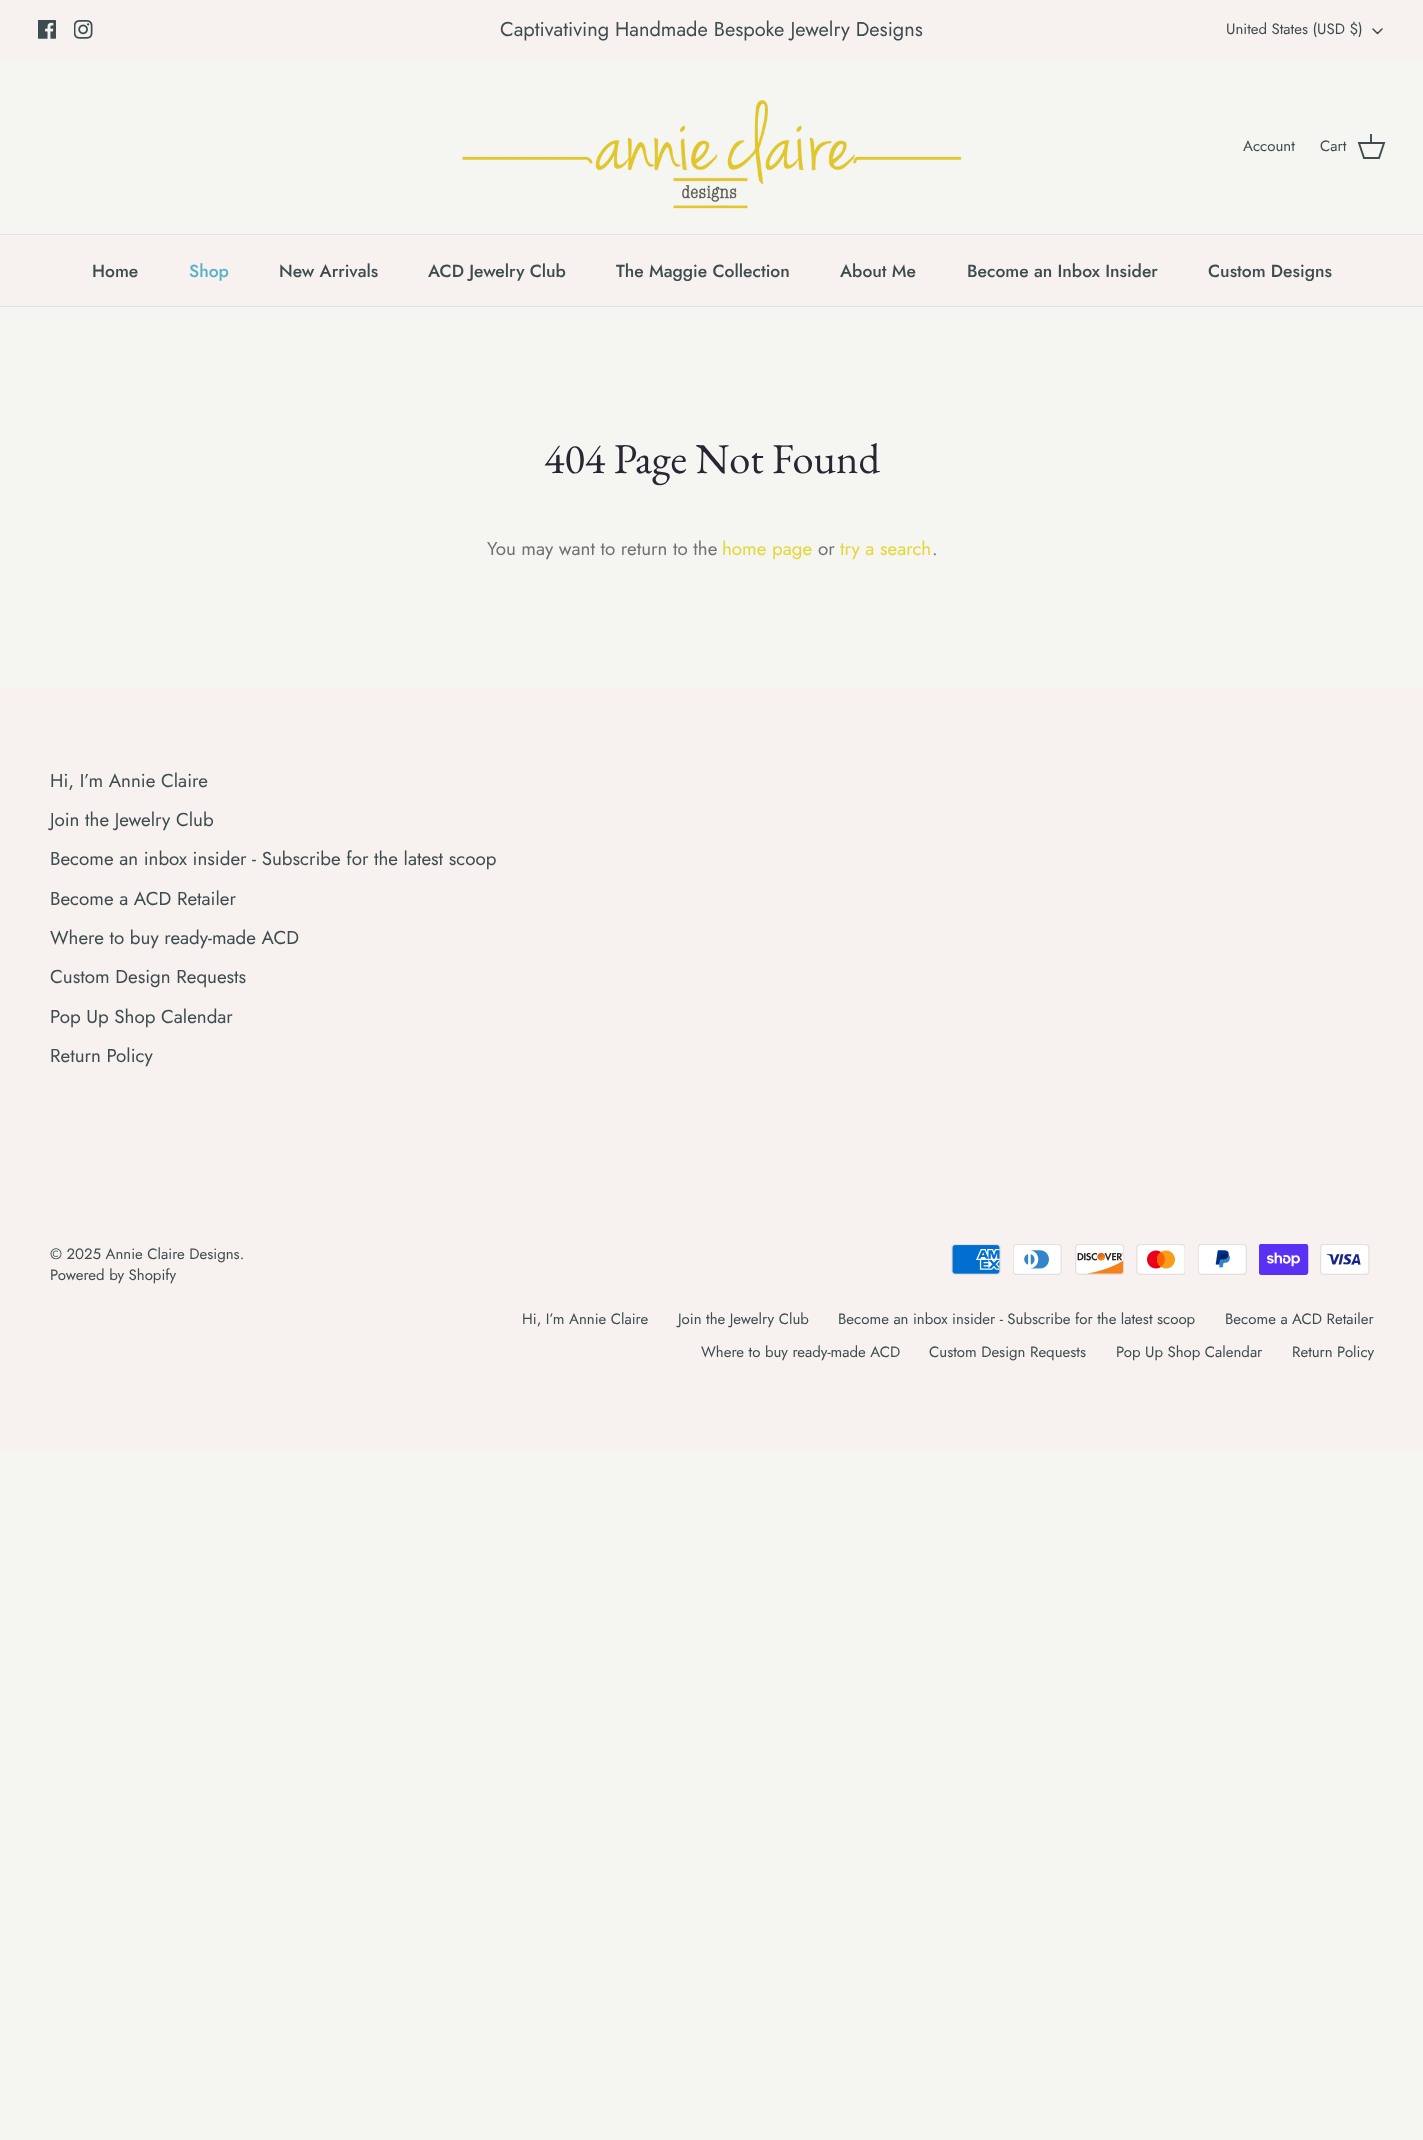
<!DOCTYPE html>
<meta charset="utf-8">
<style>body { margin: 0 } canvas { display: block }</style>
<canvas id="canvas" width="1423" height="2140"></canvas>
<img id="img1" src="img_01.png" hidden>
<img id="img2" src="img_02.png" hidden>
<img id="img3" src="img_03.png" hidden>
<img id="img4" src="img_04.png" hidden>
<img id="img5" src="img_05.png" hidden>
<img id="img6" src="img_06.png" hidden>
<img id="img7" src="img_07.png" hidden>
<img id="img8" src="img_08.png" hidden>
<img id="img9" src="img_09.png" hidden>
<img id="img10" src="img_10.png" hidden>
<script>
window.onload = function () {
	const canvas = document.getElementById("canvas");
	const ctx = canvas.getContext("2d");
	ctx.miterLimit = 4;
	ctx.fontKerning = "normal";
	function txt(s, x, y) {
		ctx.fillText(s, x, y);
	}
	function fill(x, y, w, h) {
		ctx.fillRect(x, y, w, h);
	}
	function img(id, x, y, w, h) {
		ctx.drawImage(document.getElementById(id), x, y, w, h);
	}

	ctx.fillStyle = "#F5F5F2";
	fill(0, 0, 1423, 2140);
	ctx.fillStyle = "#F7F1F0";
	fill(0, 0, 1423, 60);
	img("img1", 38, 20, 18, 19);
	img("img2", 74, 20, 19, 19);
	ctx.beginPath();
	ctx.moveTo(1373, 29);
	ctx.lineTo(1377.5, 33.5);
	ctx.lineTo(1382, 29);
	ctx.strokeStyle = "#3D4C4F";
	ctx.lineWidth = 1.5;
	ctx.lineCap = "round";
	ctx.lineJoin = "round";
	ctx.stroke();
	ctx.fillStyle = "#DFE3E8";
	fill(0, 234, 1423, 1);
	img("img3", 462, 100, 500, 109);
	ctx.beginPath();
	ctx.moveTo(1359, 143);
	ctx.lineTo(1384, 143);
	ctx.lineTo(1379, 158);
	ctx.lineTo(1364, 158);
	ctx.closePath();
	ctx.lineWidth = 1.9;
	ctx.lineCap = "butt";
	ctx.lineJoin = "miter";
	ctx.stroke();
	ctx.fillStyle = "rgba(61, 76, 79, 0.95)";
	fill(1370, 134, 2, 9);
	ctx.fillStyle = "#DFE3E8";
	fill(0, 306, 1423, 1);
	ctx.fillStyle = "#F7F1F0";
	fill(0, 235, 1423, 71);
	fill(0, 689, 1423, 761);
	img("img4", 951, 1244, 50, 31);
	img("img5", 1013, 1244, 49, 31);
	img("img6", 1075, 1244, 49, 31);
	img("img7", 1136, 1244, 49, 31);
	img("img8", 1198, 1244, 49, 31);
	img("img9", 1259, 1244, 50, 31);
	img("img10", 1320, 1244, 50, 31);
	ctx.font = "20px Jost";
	ctx.fillStyle = "#3D4C4F";
	txt("Captivativing Handmade Bespoke Jewelry Designs", 500, 36);
	ctx.font = "15px Jost";
	txt("United States (USD $)", 1226, 34);
	txt("Account", 1243, 151);
	txt("Cart", 1320, 151);
	ctx.font = "500 17.5px Jost";
	txt("Home", 92, 277);
	ctx.fillStyle = "#56B2C5";
	txt("Shop", 189, 277);
	ctx.fillStyle = "#3D4C4F";
	txt("New Arrivals", 279, 277);
	txt("ACD Jewelry Club", 428, 277);
	txt("The Maggie Collection", 616, 277);
	txt("About Me", 840, 277);
	txt("Become an Inbox Insider", 967, 277);
	txt("Custom Designs", 1208, 277);
	ctx.font = "42.5px EB Garamond";
	ctx.fillStyle = "#2A2433";
	txt("404 Page Not Found", 544, 473);
	ctx.font = "18.75px Jost";
	ctx.fillStyle = "#707173";
	txt("You may want to return to the", 487, 555);
	ctx.fillStyle = "#E4D735";
	txt("home page", 722, 555);
	ctx.fillStyle = "#707173";
	txt("or", 818, 555);
	ctx.fillStyle = "#E4D735";
	txt("try a search", 840, 555);
	ctx.fillStyle = "#707173";
	txt(".", 932, 555);
	ctx.fillStyle = "#3D4C4F";
	txt("Hi, I’m Annie Claire", 50, 787);
	txt("Join the Jewelry Club", 50, 826);
	txt("Become an inbox insider - Subscribe for the latest scoop", 50, 865);
	txt("Become a ACD Retailer", 50, 905);
	txt("Where to buy ready-made ACD", 50, 944);
	txt("Custom Design Requests", 50, 983);
	txt("Pop Up Shop Calendar", 50, 1023);
	txt("Return Policy", 50, 1062);
	ctx.font = "15px Jost";
	txt("© 2025 Annie Claire Designs.", 50, 1259);
	txt("Powered by Shopify", 50, 1280);
	txt("Hi, I’m Annie Claire", 522, 1324);
	txt("Join the Jewelry Club", 678, 1324);
	txt("Become an inbox insider - Subscribe for the latest scoop", 838, 1324);
	txt("Become a ACD Retailer", 1225, 1324);
	txt("Where to buy ready-made ACD", 701, 1357);
	txt("Custom Design Requests", 929, 1357);
	txt("Pop Up Shop Calendar", 1116, 1357);
	txt("Return Policy", 1292, 1357);
};
</script>
